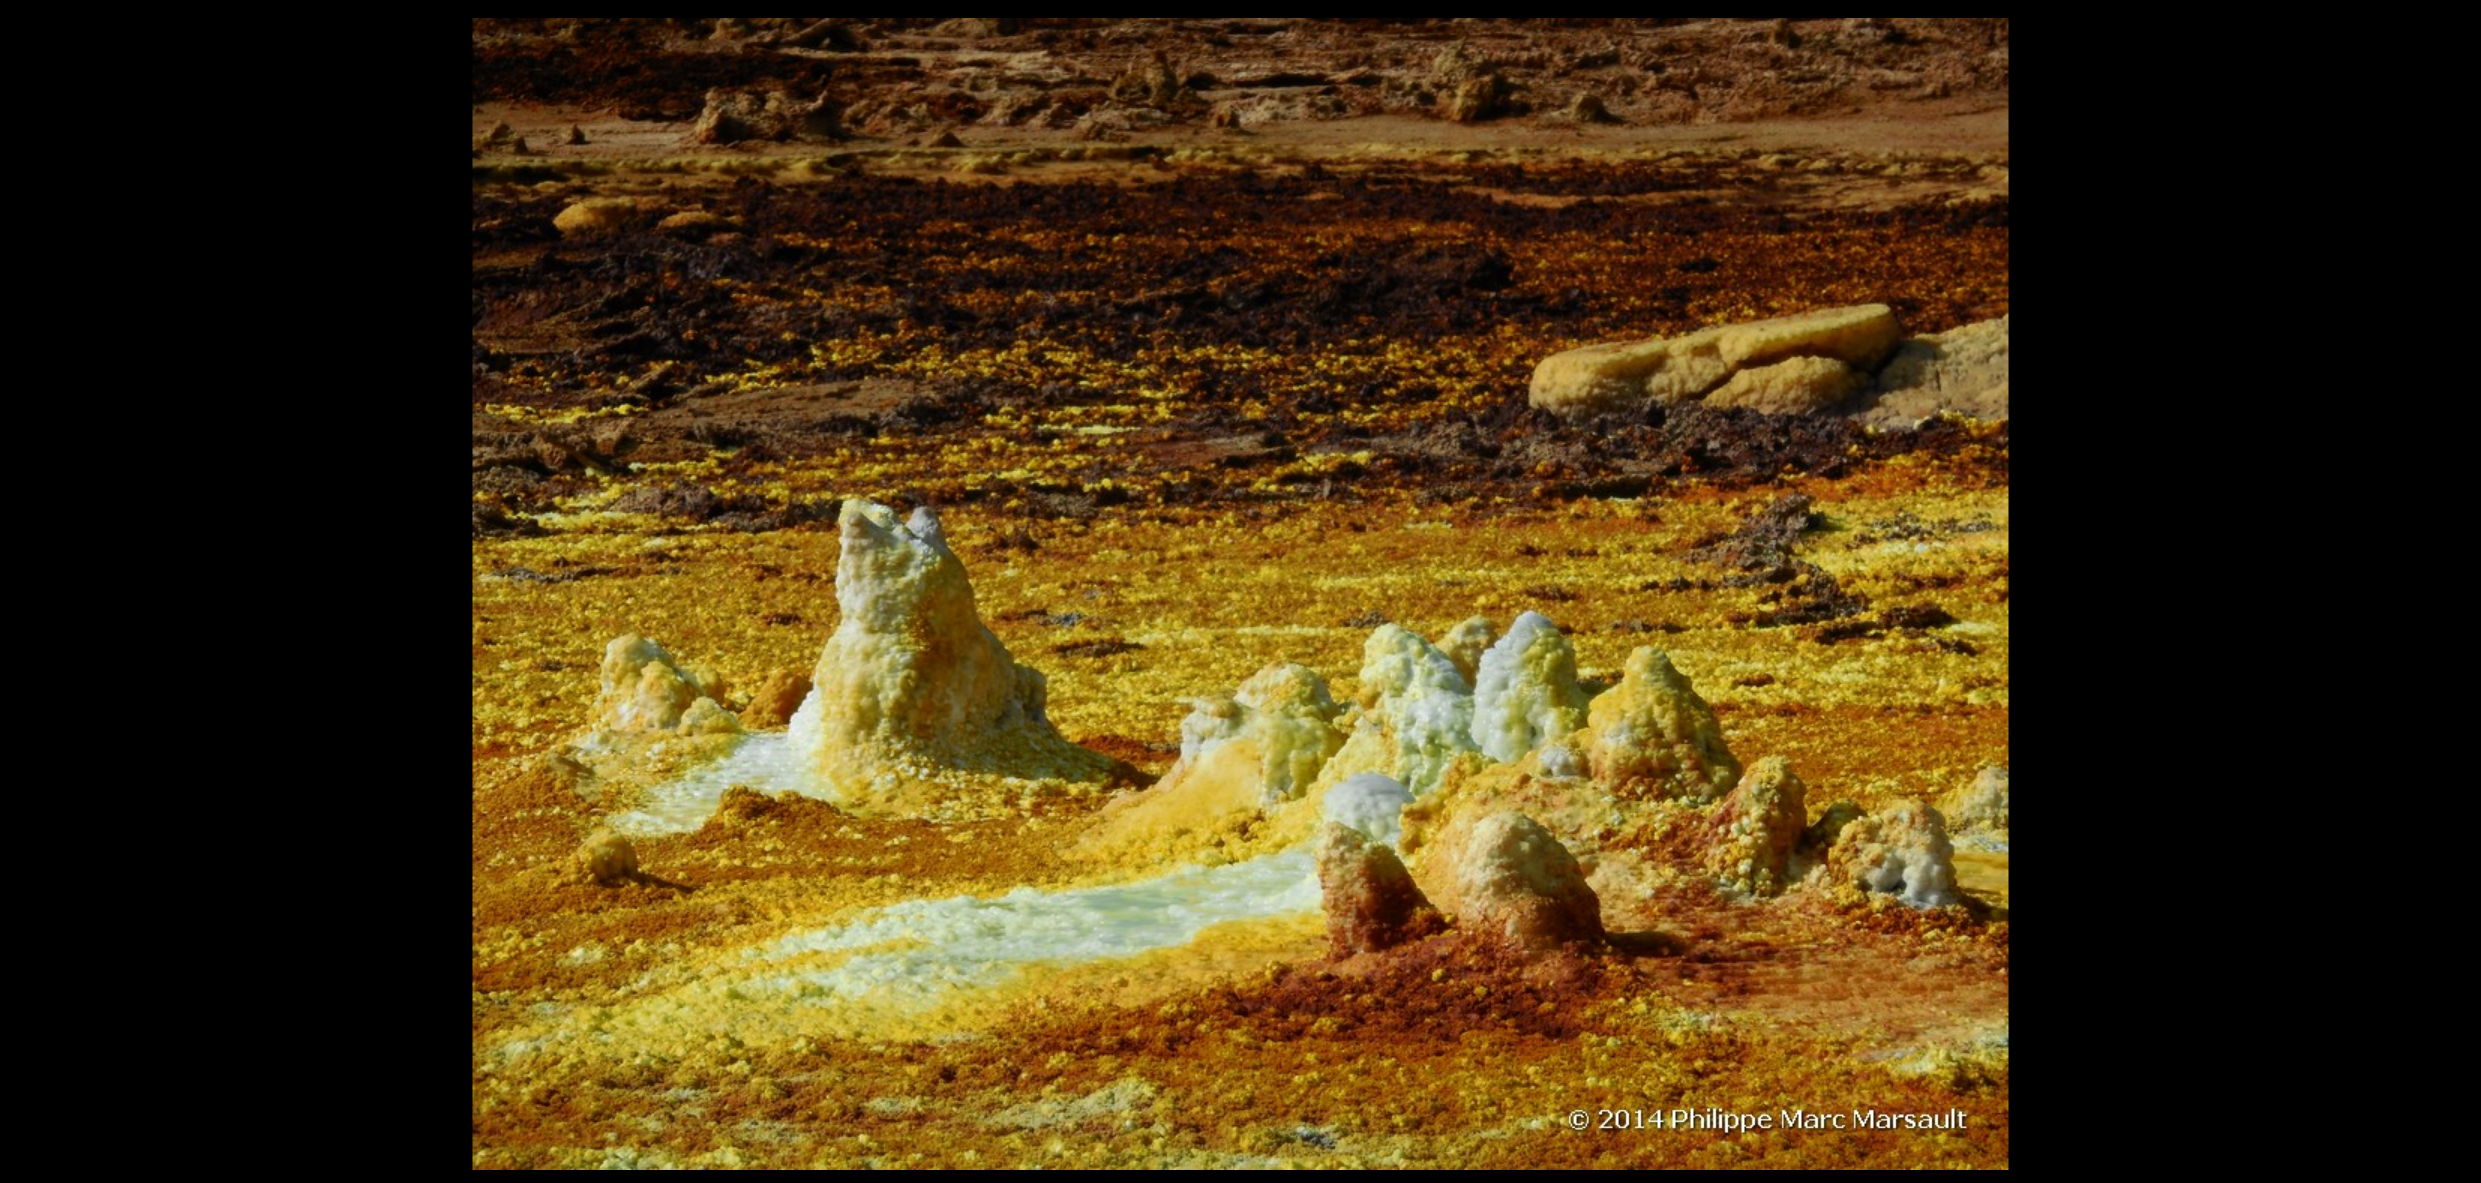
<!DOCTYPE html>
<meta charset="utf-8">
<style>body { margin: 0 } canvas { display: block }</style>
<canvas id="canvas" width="2481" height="1183"></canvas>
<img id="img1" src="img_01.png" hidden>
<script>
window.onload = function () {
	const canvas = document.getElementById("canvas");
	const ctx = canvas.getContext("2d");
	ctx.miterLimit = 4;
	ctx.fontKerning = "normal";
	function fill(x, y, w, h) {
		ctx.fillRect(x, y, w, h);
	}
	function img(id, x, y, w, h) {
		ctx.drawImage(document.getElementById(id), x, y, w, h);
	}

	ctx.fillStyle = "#000000";
	fill(0, 0, 2481, 1183);
	img("img1", 472, 18, 1537, 1152);
};
</script>
